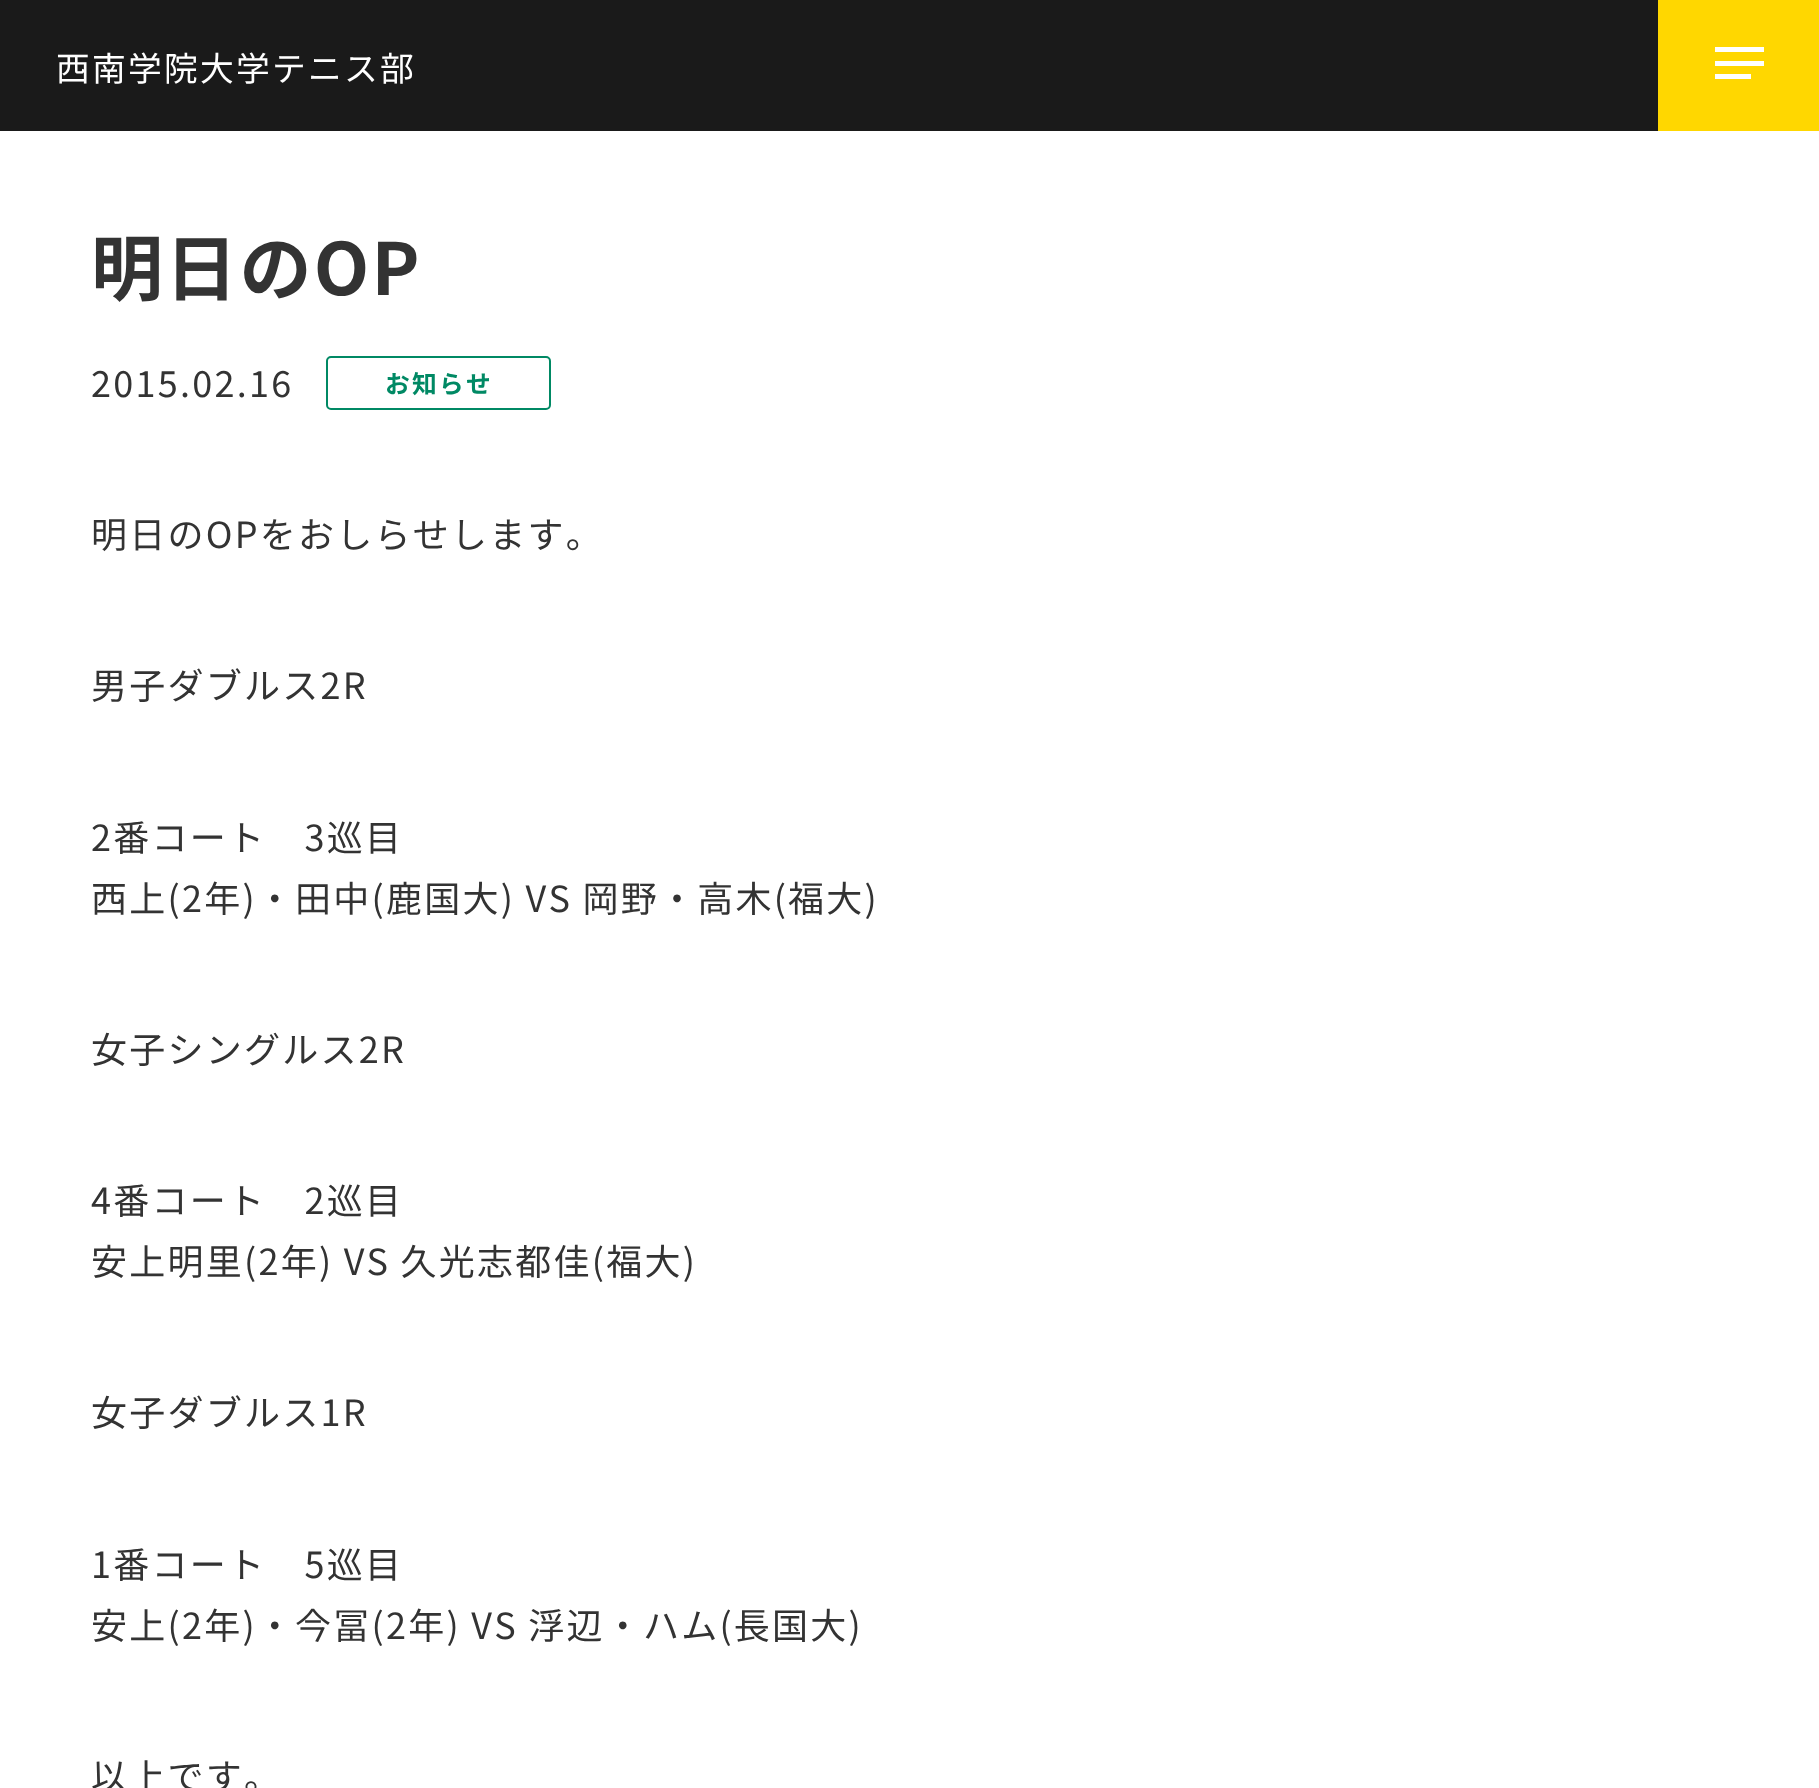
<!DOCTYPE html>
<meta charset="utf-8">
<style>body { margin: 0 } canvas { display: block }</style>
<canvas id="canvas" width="1819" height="1788"></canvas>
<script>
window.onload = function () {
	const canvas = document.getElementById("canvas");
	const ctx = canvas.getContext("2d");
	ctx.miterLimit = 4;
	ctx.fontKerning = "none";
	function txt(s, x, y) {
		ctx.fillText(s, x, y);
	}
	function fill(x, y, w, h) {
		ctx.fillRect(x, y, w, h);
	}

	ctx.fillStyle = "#FFFFFF";
	fill(0, 0, 1819, 1788);
	ctx.fillStyle = "#1A1A1A";
	fill(0, 0, 1658, 131);
	ctx.fillStyle = "#FFD700";
	fill(1658, 0, 161, 131);
	ctx.fillStyle = "#FFFFFF";
	fill(1715, 47, 49, 5);
	fill(1715, 61, 49, 5);
	fill(1715, 74, 36, 5);
	ctx.beginPath();
	ctx.roundRect(327, 357, 223, 52, 4);
	ctx.strokeStyle = "#008964";
	ctx.lineWidth = 2;
	ctx.stroke();
	ctx.letterSpacing = "2.25px";
	ctx.font = "33.75px Noto Sans JP";
	txt("西南学院大学テニス部", 56, 81);
	ctx.font = "bold 72px Noto Sans JP";
	ctx.fillStyle = "#333333";
	txt("明日のOP", 91, 295);
	ctx.font = "36px Noto Sans JP";
	txt("2015.02.16", 91, 397);
	ctx.font = "bold 24.75px Noto Sans JP";
	ctx.fillStyle = "#008964";
	txt("お知らせ", 385, 393);
	ctx.font = "36px Noto Sans JP";
	ctx.fillStyle = "#333333";
	txt("明日のOPをおしらせします。", 91, 548);
	txt("男子ダブルス2R", 91, 699);
	txt("2番コート　3巡目", 91, 851);
	txt("西上(2年)・田中(鹿国大) VS 岡野・高木(福大)", 91, 912);
	txt("女子シングルス2R", 91, 1063);
	txt("4番コート　2巡目", 91, 1214);
	txt("安上明里(2年) VS 久光志都佳(福大)", 91, 1275);
	txt("女子ダブルス1R", 91, 1426);
	txt("1番コート　5巡目", 91, 1578);
	txt("安上(2年)・今冨(2年) VS 浮辺・ハム(長国大)", 91, 1639);
	txt("以上です。", 91, 1790);
};
</script>
